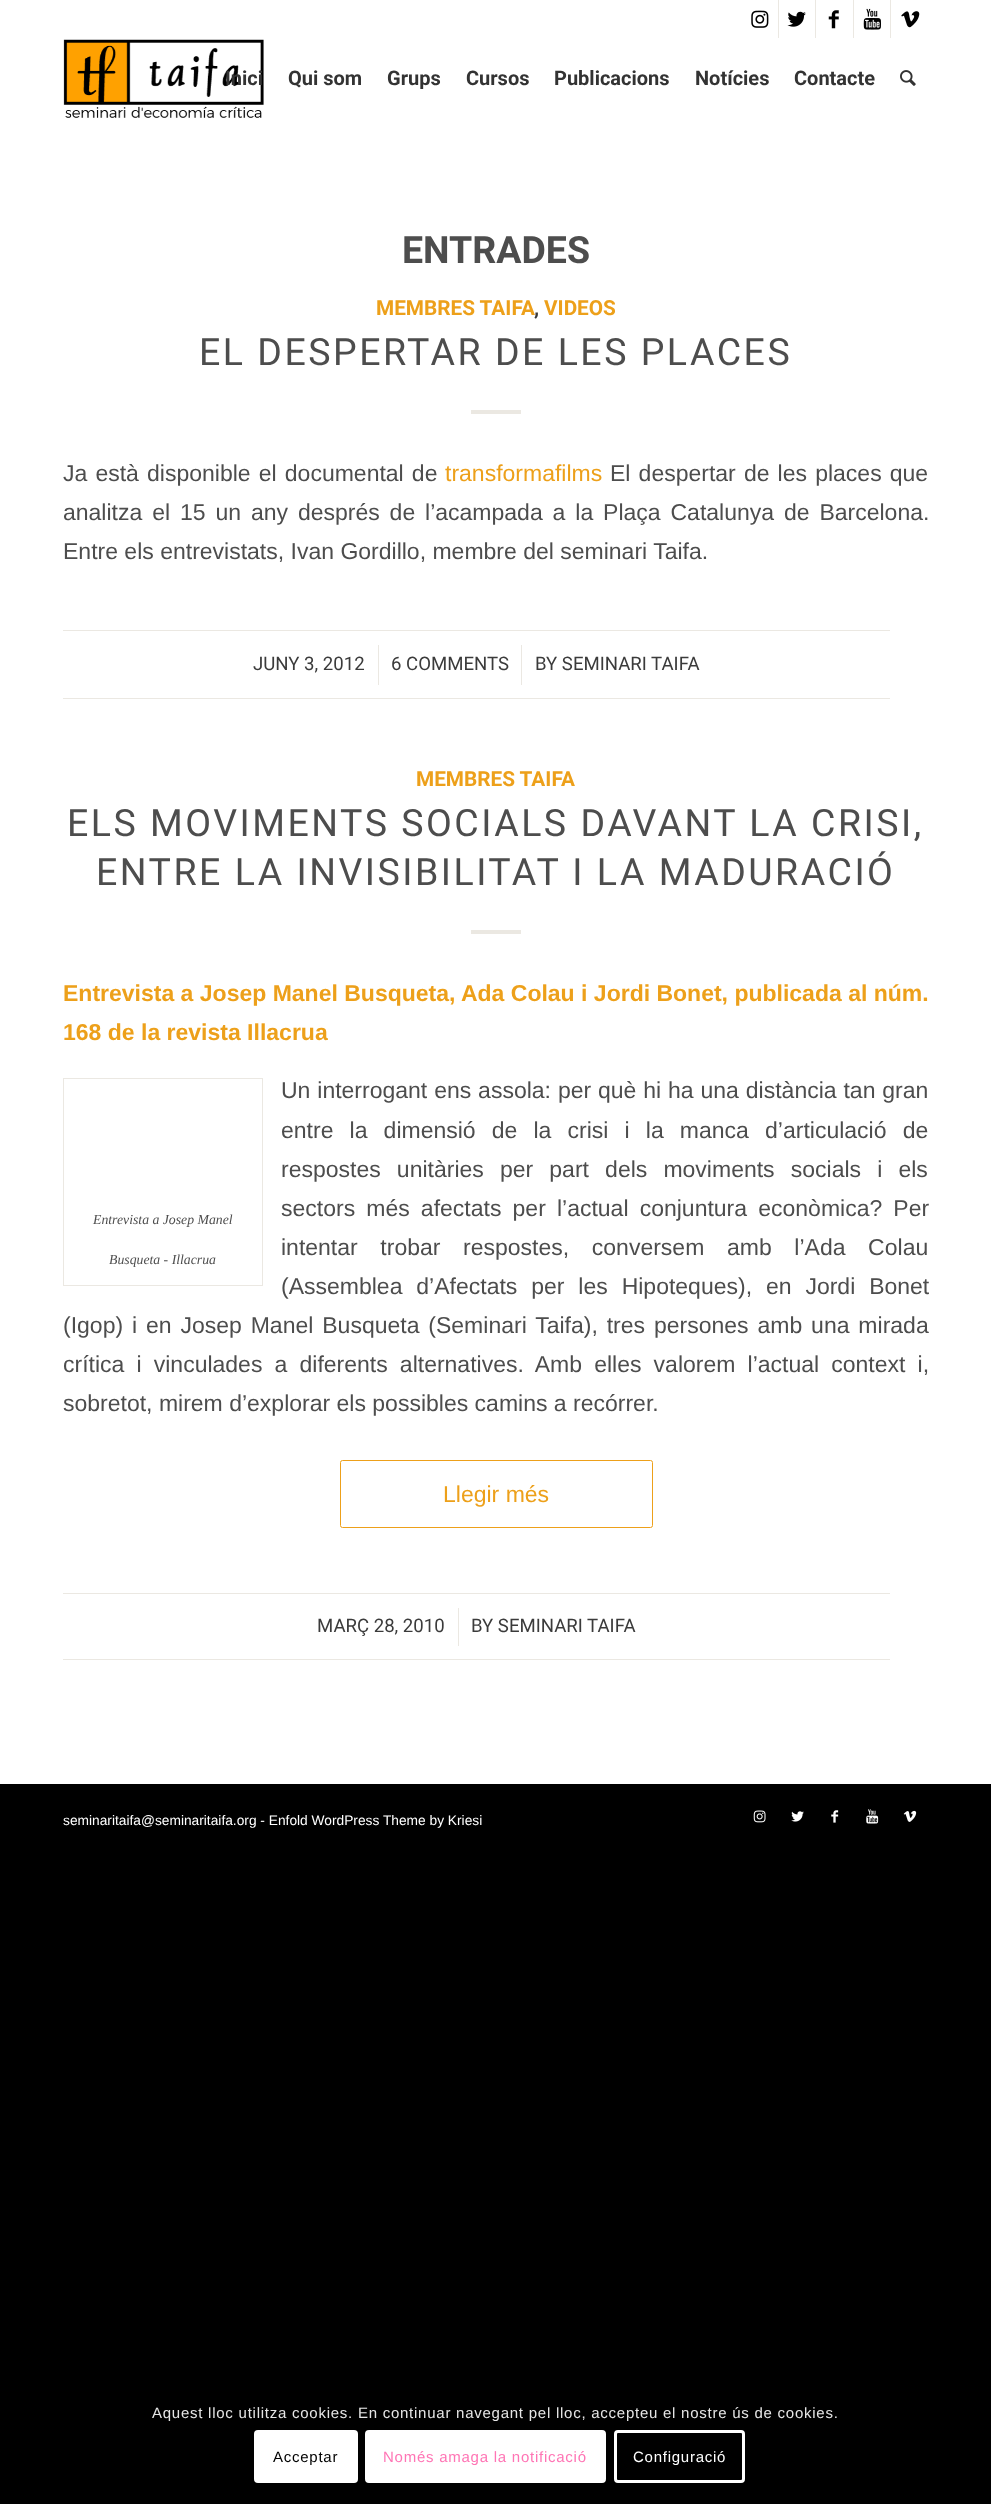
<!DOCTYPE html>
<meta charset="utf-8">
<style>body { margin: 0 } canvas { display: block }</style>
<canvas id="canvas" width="991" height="2504"></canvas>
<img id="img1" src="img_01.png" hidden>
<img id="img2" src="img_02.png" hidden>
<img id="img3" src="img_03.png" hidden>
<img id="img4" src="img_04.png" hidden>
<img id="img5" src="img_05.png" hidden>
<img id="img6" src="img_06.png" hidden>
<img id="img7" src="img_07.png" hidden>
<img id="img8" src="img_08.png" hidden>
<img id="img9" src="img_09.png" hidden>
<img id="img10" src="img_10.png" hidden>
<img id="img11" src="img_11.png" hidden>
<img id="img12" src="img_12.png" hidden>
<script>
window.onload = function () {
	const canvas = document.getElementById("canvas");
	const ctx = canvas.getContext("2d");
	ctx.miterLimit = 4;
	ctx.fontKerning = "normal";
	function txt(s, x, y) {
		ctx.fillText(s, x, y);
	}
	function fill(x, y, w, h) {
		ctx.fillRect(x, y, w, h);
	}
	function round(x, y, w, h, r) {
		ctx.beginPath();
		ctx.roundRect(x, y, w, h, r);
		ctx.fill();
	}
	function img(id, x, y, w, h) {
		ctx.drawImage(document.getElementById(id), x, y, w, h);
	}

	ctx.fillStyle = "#000000";
	fill(0, 0, 991, 2504);
	ctx.fillStyle = "#FFFFFF";
	fill(0, 0, 991, 1784);
	ctx.fillStyle = "#EBE8E2";
	fill(778, 0, 1, 38);
	img("img1", 751, 10, 18, 18);
	fill(815, 0, 1, 38);
	img("img2", 787, 11, 19, 16);
	fill(853, 0, 1, 38);
	img("img3", 828, 10, 11, 19);
	fill(890, 0, 1, 38);
	img("img4", 863, 8, 18, 22);
	img("img5", 901, 11, 19, 17);
	img("img6", 63, 39, 201, 79);
	img("img7", 900, 70, 16, 16);
	fill(471, 410, 50, 4);
	fill(63, 630, 827, 1);
	fill(63, 698, 827, 1);
	fill(378, 645, 1, 40);
	fill(521, 645, 1, 40);
	fill(471, 930, 50, 4);
	ctx.strokeStyle = "#EBE8E2";
	ctx.strokeRect(63.5, 1078.5, 199, 207);
	ctx.beginPath();
	ctx.roundRect(340.5, 1460.5, 312, 67, 2);
	ctx.strokeStyle = "#EDA01A";
	ctx.stroke();
	fill(63, 1593, 827, 1);
	fill(63, 1659, 827, 1);
	fill(458, 1608, 1, 38);
	img("img8", 753, 1810, 13, 13);
	img("img9", 791, 1811, 13, 11);
	img("img10", 831, 1810, 8, 13);
	img("img11", 866, 1809, 13, 15);
	img("img12", 903, 1810, 14, 12);
	ctx.fillStyle = "#FFFFFF";
	round(254, 2430, 104, 53, 4);
	ctx.beginPath();
	ctx.roundRect(366.5, 2431.5, 238, 50, 2.5);
	ctx.fill();
	ctx.strokeStyle = "#FFFFFF";
	ctx.lineWidth = 3;
	ctx.stroke();
	ctx.beginPath();
	ctx.roundRect(615.5, 2431.5, 128, 50, 2.5);
	ctx.stroke();
	ctx.font = "bold 20px Roboto";
	ctx.fillStyle = "#333333";
	txt("Inici", 225, 85);
	txt("Qui som", 288, 85);
	txt("Grups", 387, 85);
	txt("Cursos", 466, 85);
	txt("Publicacions", 554, 85);
	txt("Notícies", 695, 85);
	txt("Contacte", 794, 85);
	ctx.font = "bold 37.5px Roboto";
	ctx.fillStyle = "#4D4D4D";
	txt("ENTRADES", 402, 263);
	ctx.font = "bold 20.75px Roboto";
	ctx.fillStyle = "#EDA01A";
	txt("MEMBRES TAIFA", 376, 315);
	ctx.fillStyle = "#3B3B3B";
	txt(",", 534, 315);
	ctx.fillStyle = "#EDA01A";
	txt("VIDEOS", 544, 315);
	ctx.letterSpacing = "2.5px";
	ctx.font = "37.5px Roboto";
	ctx.fillStyle = "#4D4D4D";
	txt("EL DESPERTAR DE LES PLACES", 199, 365);
	ctx.letterSpacing = "0px";
	ctx.wordSpacing = "1.75px";
	ctx.font = "23px Liberation Sans";
	txt("Ja està disponible el documental de", 63, 481);
	ctx.wordSpacing = "0px";
	ctx.fillStyle = "#EDA01A";
	txt("transformafilms", 445, 481);
	ctx.wordSpacing = "1.75px";
	ctx.fillStyle = "#4D4D4D";
	txt("El despertar de les places que", 610, 481);
	ctx.wordSpacing = "3.5px";
	txt("analitza el 15 un any després de l’acampada a la Plaça Catalunya de Barcelona.", 63, 520);
	ctx.wordSpacing = "0px";
	txt("Entre els entrevistats, Ivan Gordillo, membre del seminari Taifa.", 63, 559);
	ctx.font = "18.6px Roboto";
	ctx.fillStyle = "#3B3B3B";
	txt("JUNY 3, 2012", 253, 670);
	txt("6 COMMENTS", 391, 670);
	txt("BY SEMINARI TAIFA", 535, 670);
	ctx.font = "bold 20.75px Roboto";
	ctx.fillStyle = "#EDA01A";
	txt("MEMBRES TAIFA", 416, 786);
	ctx.letterSpacing = "2.5px";
	ctx.font = "37.5px Roboto";
	ctx.fillStyle = "#4D4D4D";
	txt("ELS MOVIMENTS SOCIALS DAVANT LA CRISI,", 67, 836);
	txt("ENTRE LA INVISIBILITAT I LA MADURACIÓ", 96, 885);
	ctx.letterSpacing = "0px";
	ctx.font = "bold 23px Liberation Sans";
	ctx.fillStyle = "#EDA01A";
	txt("Entrevista a Josep Manel Busqueta, Ada Colau i Jordi Bonet, publicada al núm.", 63, 1001);
	txt("168 de la revista Illacrua", 63, 1040);
	ctx.wordSpacing = "0.5px";
	ctx.font = "23px Liberation Sans";
	ctx.fillStyle = "#4D4D4D";
	txt("Un interrogant ens assola: per què hi ha una distància tan gran", 281, 1098);
	ctx.wordSpacing = "9.75px";
	txt("entre la dimensió de la crisi i la manca d’articulació de", 281, 1138);
	txt("respostes unitàries per part dels moviments socials i els", 281, 1177);
	ctx.wordSpacing = "4.75px";
	txt("sectors més afectats per l’actual conjuntura econòmica? Per", 281, 1216);
	ctx.wordSpacing = "16.25px";
	txt("intentar trobar respostes, conversem amb l’Ada Colau", 281, 1255);
	ctx.wordSpacing = "7.5px";
	txt("(Assemblea d’Afectats per les Hipoteques), en Jordi Bonet", 281, 1294);
	ctx.wordSpacing = "2.5px";
	txt("(Igop) i en Josep Manel Busqueta (Seminari Taifa), tres persones amb una mirada", 63, 1333);
	ctx.wordSpacing = "5.75px";
	txt("crítica i vinculades a diferents alternatives. Amb elles valorem l’actual context i,", 63, 1372);
	ctx.wordSpacing = "0px";
	txt("sobretot, mirem d’explorar els possibles camins a recórrer.", 63, 1411);
	ctx.font = "italic 13.75px Liberation Serif";
	txt("Entrevista a Josep Manel", 93, 1224);
	txt("Busqueta - Illacrua", 109, 1264);
	ctx.font = "23px Liberation Sans";
	ctx.fillStyle = "#EDA01A";
	txt("Llegir més", 443, 1502);
	ctx.font = "18.6px Roboto";
	ctx.fillStyle = "#3B3B3B";
	txt("MARÇ 28, 2010", 317, 1632);
	txt("BY SEMINARI TAIFA", 471, 1632);
	ctx.font = "13.75px Liberation Sans";
	ctx.fillStyle = "#FFFFFF";
	txt("seminaritaifa@seminaritaifa.org - Enfold WordPress Theme by Kriesi", 63, 1825);
	ctx.letterSpacing = "0.75px";
	ctx.font = "15px Liberation Sans";
	ctx.fillStyle = "#E6E6E6";
	txt("Aquest lloc utilitza cookies. En continuar navegant pel lloc, accepteu el nostre ús de cookies.", 152, 2418);
	ctx.fillStyle = "#000000";
	txt("Acceptar", 273, 2462);
	ctx.fillStyle = "#FF75B5";
	txt("Només amaga la notificació", 383, 2462);
	ctx.fillStyle = "#FFFFFF";
	txt("Configuració", 633, 2462);
};
</script>
